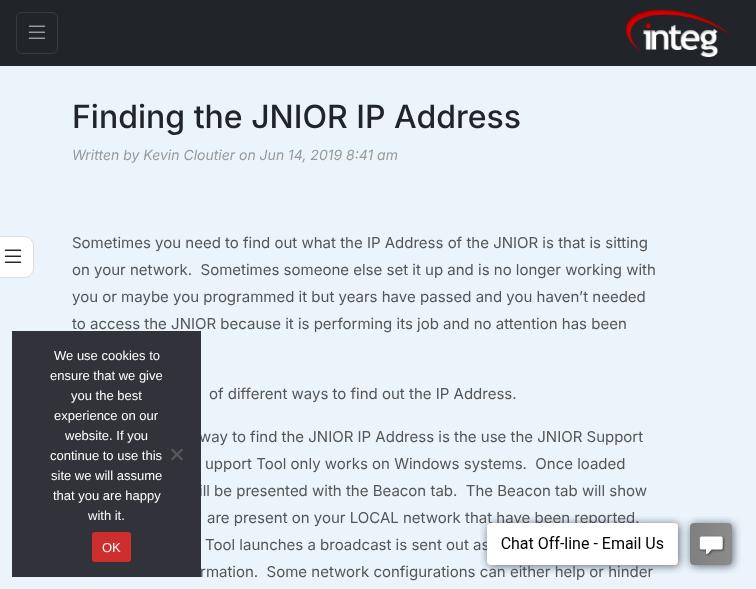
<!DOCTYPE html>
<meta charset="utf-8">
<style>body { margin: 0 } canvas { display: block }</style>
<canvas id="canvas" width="756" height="589"></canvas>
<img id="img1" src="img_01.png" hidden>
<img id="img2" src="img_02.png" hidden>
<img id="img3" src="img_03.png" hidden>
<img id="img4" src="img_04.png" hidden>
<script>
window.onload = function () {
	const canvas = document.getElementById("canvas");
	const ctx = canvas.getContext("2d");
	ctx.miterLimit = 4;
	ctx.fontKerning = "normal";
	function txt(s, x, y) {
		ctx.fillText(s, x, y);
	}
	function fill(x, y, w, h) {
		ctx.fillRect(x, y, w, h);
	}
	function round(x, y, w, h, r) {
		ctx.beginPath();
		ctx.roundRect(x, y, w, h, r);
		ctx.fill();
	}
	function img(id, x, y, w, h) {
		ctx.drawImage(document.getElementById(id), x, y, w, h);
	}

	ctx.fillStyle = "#EBF4FB";
	fill(0, 0, 756, 589);
	ctx.fillStyle = "#212529";
	fill(0, 0, 756, 66);
	ctx.beginPath();
	ctx.roundRect(16.5, 12.5, 41, 41, 5.5);
	ctx.strokeStyle = "#373B3E";
	ctx.stroke();
	img("img1", 28, 25, 18, 14);
	img("img2", 626, 9, 106, 48);
	ctx.fillStyle = "#FFFFFF";
	ctx.beginPath();
	ctx.moveTo(-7.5, 236.5);
	ctx.lineTo(24, 236.5);
	ctx.bezierCurveTo(29, 236.5, 33.5, 241, 33.5, 246);
	ctx.lineTo(33.5, 268);
	ctx.bezierCurveTo(33.5, 273, 29, 277.5, 24, 277.5);
	ctx.lineTo(-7.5, 277.5);
	ctx.closePath();
	ctx.fill();
	ctx.strokeStyle = "#DDDDDD";
	ctx.stroke();
	img("img3", 4, 249, 18, 14);
	ctx.font = "500 32px Inter";
	ctx.fillStyle = "#212529";
	txt("Finding the JNIOR IP Address", 72, 128);
	ctx.font = "italic 14px Inter";
	ctx.fillStyle = "#999999";
	txt("Written by Kevin Cloutier on Jun 14, 2019 8:41 am", 72, 160);
	ctx.font = "15px Inter";
	ctx.fillStyle = "#555555";
	txt("Sometimes you need to find out what the IP Address of the JNIOR is that is sitting", 72, 248);
	txt("on your network.  Sometimes someone else set it up and is no longer working with", 72, 275);
	txt("you or maybe you programmed it but years have passed and you haven’t needed", 72, 302);
	txt("to access the JNIOR because it is performing its job and no attention has been", 72, 329);
	txt("of different ways to find out the IP Address.", 209, 399);
	txt("way to find the JNIOR IP Address is the use the JNIOR Support", 199, 442);
	txt("upport Tool only works on Windows systems.  Once loaded", 205, 469);
	txt("ill be presented with the Beacon tab.  The Beacon tab will show", 199, 496);
	txt("are present on your LOCAL network that have been reported.", 207, 523);
	txt("Tool launches a broadcast is sent out as", 205, 550);
	txt("rmation.  Some network configurations can either help or hinder", 200, 577);
	ctx.fillStyle = "#32323A";
	fill(12, 331, 189, 246);
	ctx.font = "13px Liberation Sans";
	ctx.fillStyle = "#FFFFFF";
	txt("We use cookies to", 54, 360);
	txt("ensure that we give", 50, 380);
	txt("you the best", 71, 400);
	txt("experience on our", 54, 420);
	txt("website. If you", 65, 440);
	txt("continue to use this", 50, 460);
	txt("site we will assume", 51, 480);
	txt("that you are happy", 53, 500);
	txt("with it.", 88, 520);
	ctx.fillStyle = "#59595D";
	ctx.beginPath();
	ctx.moveTo(181.5, 448.5);
	ctx.lineTo(183, 450);
	ctx.lineTo(172.5, 460.5);
	ctx.lineTo(171, 459);
	ctx.closePath();
	ctx.fill();
	ctx.beginPath();
	ctx.moveTo(171, 450);
	ctx.lineTo(172.5, 448.5);
	ctx.lineTo(183, 459);
	ctx.lineTo(181.5, 460.5);
	ctx.closePath();
	ctx.fill();
	ctx.fillStyle = "#CF2E2E";
	round(92, 532, 39, 30, 3);
	ctx.fillStyle = "#FFFFFF";
	txt("OK", 102, 552);
	img("img4", 480, 516, 261, 58);
};
</script>
